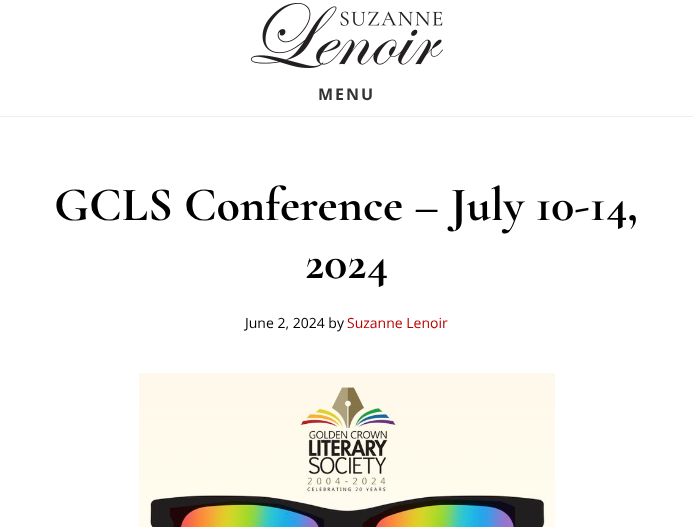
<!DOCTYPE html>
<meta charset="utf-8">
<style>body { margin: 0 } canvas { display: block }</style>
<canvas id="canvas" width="693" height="527"></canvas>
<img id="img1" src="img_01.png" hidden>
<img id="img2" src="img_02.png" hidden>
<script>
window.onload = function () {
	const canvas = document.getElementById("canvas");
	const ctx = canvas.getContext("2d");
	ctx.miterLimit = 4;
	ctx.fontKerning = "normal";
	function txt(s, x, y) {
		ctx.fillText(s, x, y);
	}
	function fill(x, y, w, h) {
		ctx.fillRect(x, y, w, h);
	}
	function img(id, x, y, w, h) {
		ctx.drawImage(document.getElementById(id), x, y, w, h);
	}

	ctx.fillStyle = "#FFFFFF";
	fill(0, 0, 693, 527);
	ctx.fillStyle = "#EEEEEE";
	fill(0, 116, 693, 1);
	img("img1", 251, 3, 192, 65);
	img("img2", 139, 373, 416, 154);
	ctx.letterSpacing = "2px";
	ctx.font = "bold 16px Open Sans";
	ctx.fillStyle = "#333333";
	txt("MENU", 318, 100);
	ctx.letterSpacing = "0px";
	ctx.font = "bold 48px Cormorant Garamond";
	ctx.fillStyle = "#000000";
	txt("GCLS Conference – July 10-14,", 54, 220);
	txt("2024", 305, 278);
	ctx.font = "14px Open Sans";
	txt("June 2, 2024 by", 245, 328);
	ctx.fillStyle = "#BA0101";
	txt("Suzanne Lenoir", 347, 328);
};
</script>
